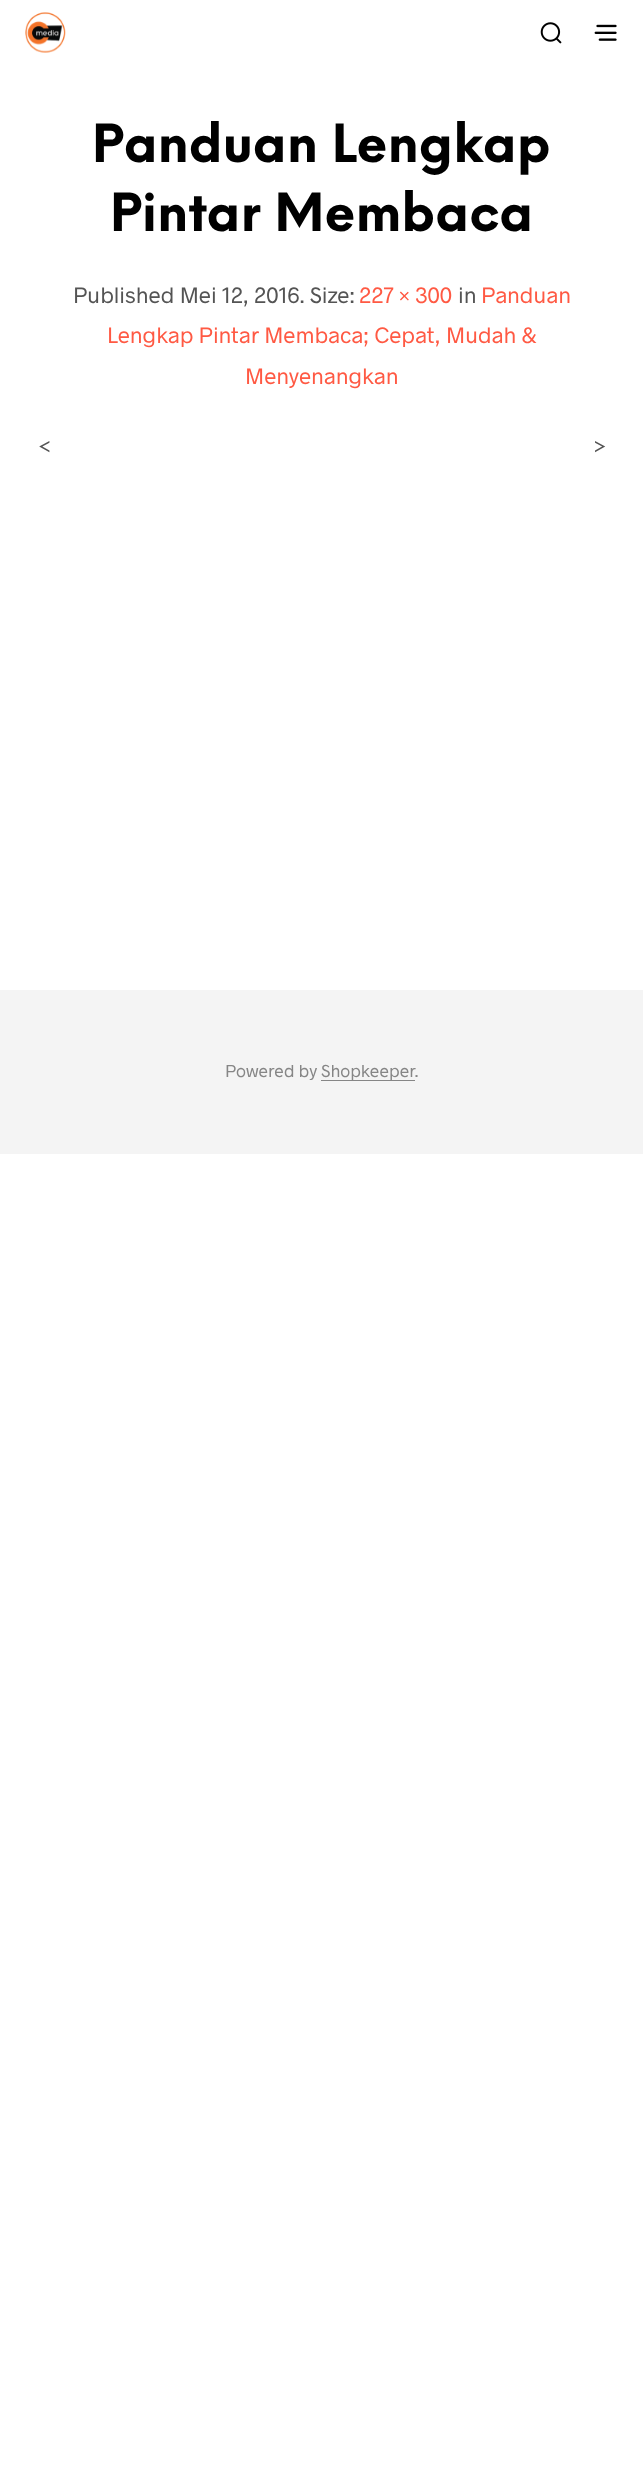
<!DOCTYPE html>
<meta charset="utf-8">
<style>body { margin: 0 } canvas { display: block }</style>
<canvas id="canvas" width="643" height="2484"></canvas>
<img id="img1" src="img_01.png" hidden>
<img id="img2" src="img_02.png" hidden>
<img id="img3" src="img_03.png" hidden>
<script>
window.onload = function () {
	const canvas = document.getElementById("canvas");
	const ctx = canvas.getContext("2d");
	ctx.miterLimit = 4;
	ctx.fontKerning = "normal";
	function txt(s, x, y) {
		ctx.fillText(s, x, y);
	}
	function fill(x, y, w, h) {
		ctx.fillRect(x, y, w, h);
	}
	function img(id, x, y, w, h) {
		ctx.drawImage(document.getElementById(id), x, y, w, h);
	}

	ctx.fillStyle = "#FFFFFF";
	fill(0, 0, 643, 2484);
	img("img1", 25, 12, 41, 41);
	img("img2", 540, 22, 22, 22);
	img("img3", 594, 24, 23, 17);
	ctx.fillStyle = "#F4F4F4";
	fill(0, 990, 643, 164);
	ctx.fillStyle = "#868686";
	fill(321, 1080, 94, 1);
	ctx.font = "bold 51.25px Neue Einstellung";
	ctx.fillStyle = "#000000";
	txt("Panduan Lengkap", 92, 162);
	txt("Pintar Membaca", 110, 231);
	ctx.font = "22.5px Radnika";
	ctx.fillStyle = "#545454";
	txt("Published Mei 12, 2016. Size:", 73, 303);
	ctx.fillStyle = "#FF5943";
	txt("227 × 300", 359, 303);
	ctx.fillStyle = "#545454";
	txt("in", 458, 303);
	ctx.fillStyle = "#FF5943";
	txt("Panduan", 481, 303);
	txt("Lengkap Pintar Membaca; Cepat, Mudah &", 107, 343);
	txt("Menyenangkan", 245, 384);
	ctx.fillStyle = "#545454";
	txt("<", 38, 454);
	txt(">", 593, 454);
	ctx.font = "17.5px Radnika";
	ctx.fillStyle = "#868686";
	txt("Powered by", 225, 1077);
	txt("Shopkeeper.", 321, 1077);
};
</script>
